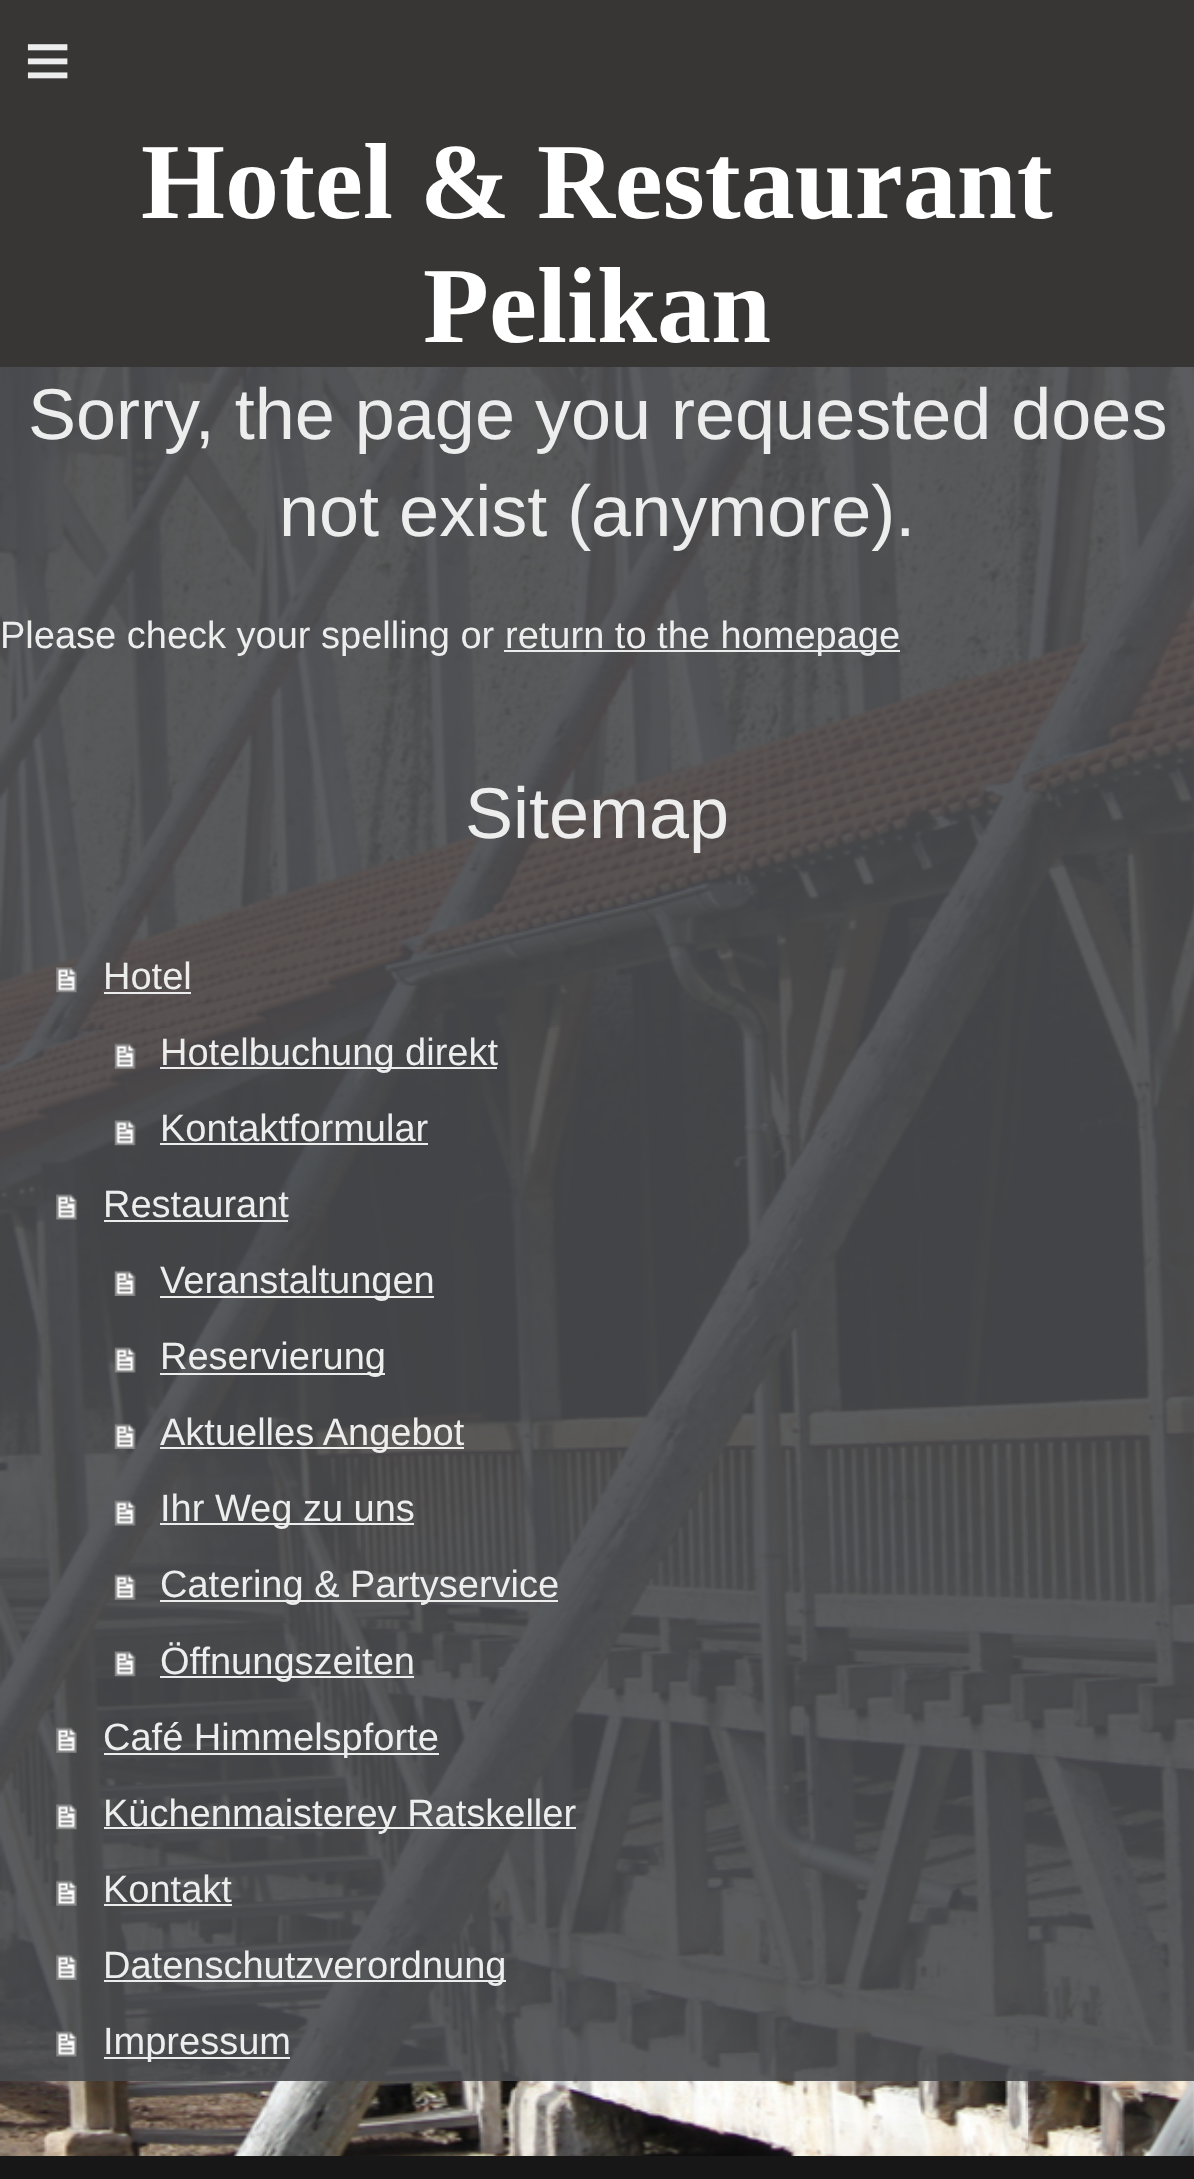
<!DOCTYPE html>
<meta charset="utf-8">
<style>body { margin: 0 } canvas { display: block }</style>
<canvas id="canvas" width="1194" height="2179"></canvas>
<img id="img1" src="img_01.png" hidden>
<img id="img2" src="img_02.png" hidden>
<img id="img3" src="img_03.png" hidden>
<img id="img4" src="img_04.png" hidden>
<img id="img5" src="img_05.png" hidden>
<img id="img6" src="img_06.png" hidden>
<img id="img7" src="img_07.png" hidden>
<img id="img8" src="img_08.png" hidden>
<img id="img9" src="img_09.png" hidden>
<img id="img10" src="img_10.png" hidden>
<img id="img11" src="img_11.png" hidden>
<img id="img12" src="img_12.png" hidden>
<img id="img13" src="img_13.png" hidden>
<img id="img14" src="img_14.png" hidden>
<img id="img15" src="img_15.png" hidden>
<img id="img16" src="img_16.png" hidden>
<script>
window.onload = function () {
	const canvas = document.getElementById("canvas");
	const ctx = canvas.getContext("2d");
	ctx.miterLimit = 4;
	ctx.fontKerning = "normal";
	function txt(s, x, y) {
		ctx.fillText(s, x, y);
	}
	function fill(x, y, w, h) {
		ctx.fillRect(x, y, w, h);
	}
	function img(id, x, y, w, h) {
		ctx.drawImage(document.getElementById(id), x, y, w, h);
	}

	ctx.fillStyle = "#FFFFFF";
	fill(0, 0, 1194, 2179);
	img("img1", 0, 367, 1194, 1789);
	ctx.fillStyle = "#383535";
	fill(0, 0, 1194, 367);
	ctx.fillStyle = "rgba(72, 74, 78, 0.9)";
	fill(0, 367, 1194, 1714);
	ctx.fillStyle = "#EDEDED";
	fill(504, 650, 396, 2);
	img("img2", 56, 967, 21, 26);
	fill(104, 992, 87, 2);
	img("img3", 114, 1043, 22, 26);
	fill(160, 1067, 337, 2);
	img("img4", 114, 1120, 22, 26);
	fill(160, 1143, 268, 2);
	img("img5", 56, 1194, 22, 26);
	fill(104, 1220, 184, 2);
	img("img6", 114, 1270, 22, 26);
	fill(160, 1296, 274, 2);
	img("img7", 114, 1347, 22, 26);
	fill(160, 1373, 225, 2);
	img("img8", 114, 1423, 22, 26);
	fill(160, 1447, 304, 2);
	img("img9", 114, 1500, 22, 26);
	fill(160, 1523, 254, 2);
	img("img10", 114, 1574, 22, 26);
	fill(160, 1600, 398, 2);
	img("img11", 114, 1651, 22, 26);
	fill(160, 1676, 254, 2);
	img("img12", 56, 1727, 21, 26);
	fill(104, 1753, 335, 2);
	img("img13", 56, 1804, 21, 26);
	fill(104, 1827, 472, 2);
	img("img14", 56, 1880, 21, 26);
	fill(104, 1904, 128, 2);
	img("img15", 56, 1954, 21, 26);
	fill(104, 1980, 402, 2);
	img("img16", 56, 2031, 21, 26);
	fill(104, 2057, 186, 2);
	ctx.fillStyle = "#171717";
	fill(0, 2156, 1194, 23);
	ctx.letterSpacing = "24px";
	ctx.font = "81px Liberation Sans";
	ctx.fillStyle = "#EDEDED";
	txt("≡", 24, 88);
	ctx.letterSpacing = "0px";
	ctx.font = "bold 108px Liberation Serif";
	ctx.fillStyle = "#FFFFFF";
	txt("Hotel & Restaurant", 141, 218);
	txt("Pelikan", 423, 342);
	ctx.font = "72px Liberation Sans";
	ctx.fillStyle = "#EDEDED";
	txt("Sorry, the page you requested does", 28, 439);
	txt("not exist (anymore).", 279, 536);
	ctx.font = "38px Liberation Sans";
	txt("Please check your spelling or", 0, 648);
	txt("return to the homepage", 505, 648);
	ctx.font = "72px Liberation Sans";
	txt("Sitemap", 465, 838);
	ctx.font = "38px Liberation Sans";
	txt("Hotel", 103, 989);
	txt("Hotelbuchung direkt", 160, 1065);
	txt("Kontaktformular", 160, 1141);
	txt("Restaurant", 103, 1217);
	txt("Veranstaltungen", 160, 1293);
	txt("Reservierung", 160, 1369);
	txt("Aktuelles Angebot", 160, 1445);
	txt("Ihr Weg zu uns", 160, 1521);
	txt("Catering & Partyservice", 160, 1597);
	txt("Öffnungszeiten", 160, 1674);
	txt("Café Himmelspforte", 103, 1750);
	txt("Küchenmaisterey Ratskeller", 103, 1826);
	txt("Kontakt", 103, 1902);
	txt("Datenschutzverordnung", 103, 1978);
	txt("Impressum", 103, 2054);
};
</script>
